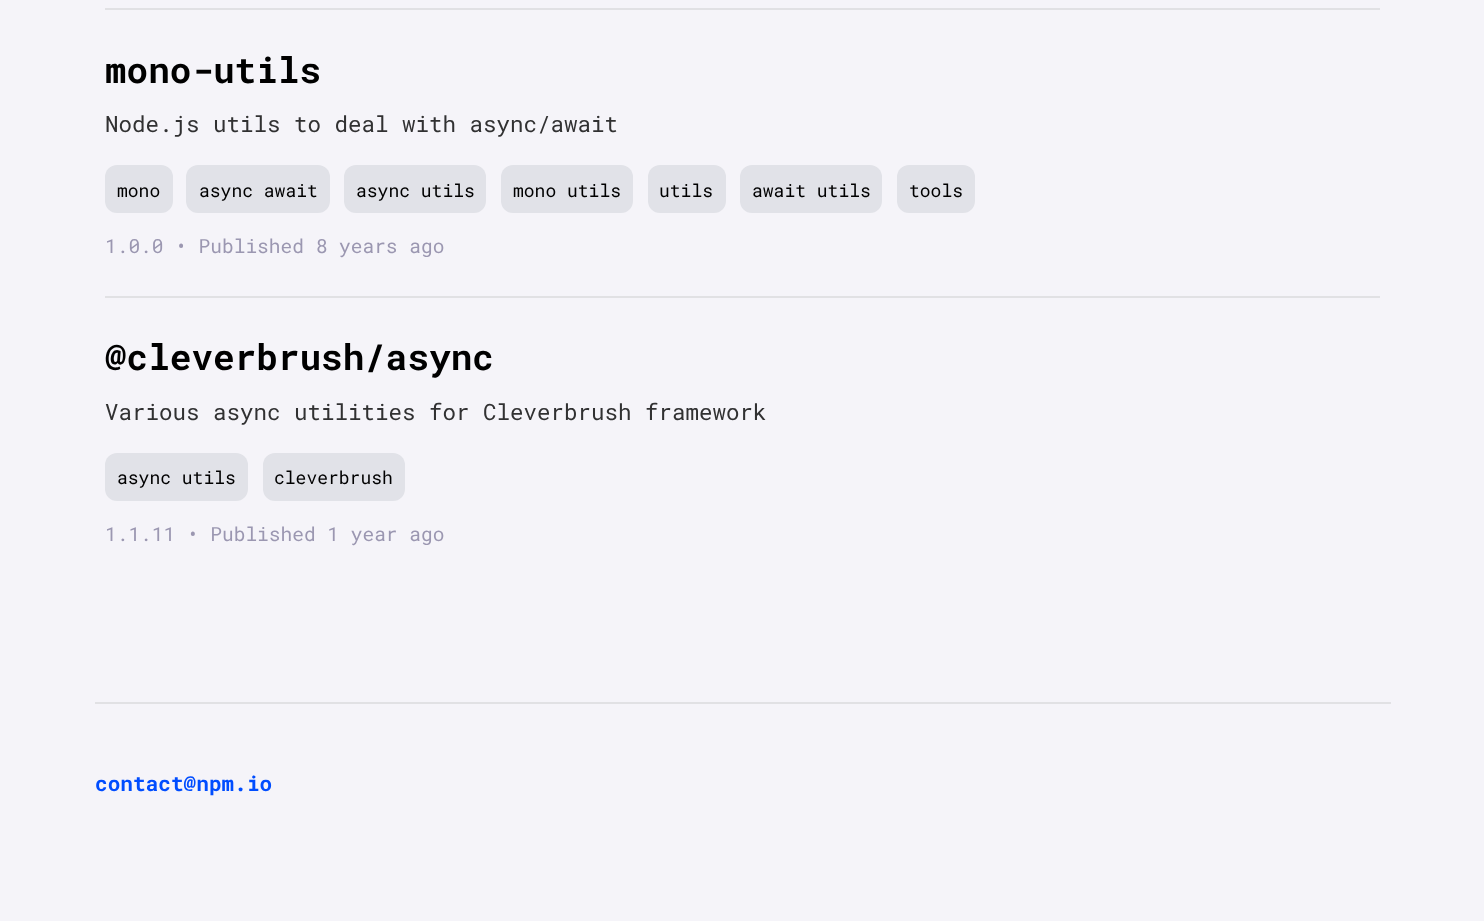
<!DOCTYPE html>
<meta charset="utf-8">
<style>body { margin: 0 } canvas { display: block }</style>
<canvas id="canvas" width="1484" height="921"></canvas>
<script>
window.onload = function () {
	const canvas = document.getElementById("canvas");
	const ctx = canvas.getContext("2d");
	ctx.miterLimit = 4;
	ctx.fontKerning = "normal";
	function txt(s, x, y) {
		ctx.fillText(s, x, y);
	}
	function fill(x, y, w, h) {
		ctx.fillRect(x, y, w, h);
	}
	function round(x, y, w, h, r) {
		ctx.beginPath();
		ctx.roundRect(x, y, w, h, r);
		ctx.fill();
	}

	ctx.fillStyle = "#F5F4F9";
	fill(0, 0, 1484, 921);
	ctx.fillStyle = "#E1E1E4";
	fill(105, 8, 1275, 2);
	fill(105, 296, 1275, 2);
	ctx.fillStyle = "#E1E2E8";
	round(105, 165, 68, 48, 12);
	round(186, 165, 144, 48, 12);
	round(344, 165, 142, 48, 12);
	round(501, 165, 132, 48, 12);
	round(648, 165, 78, 48, 12);
	round(740, 165, 142, 48, 12);
	round(897, 165, 78, 48, 12);
	round(105, 453, 143, 48, 12);
	round(263, 453, 142, 48, 12);
	ctx.fillStyle = "#E1E1E4";
	fill(95, 702, 1296, 2);
	ctx.font = "bold 36px Roboto Mono";
	ctx.fillStyle = "#000000";
	txt("mono-utils", 105, 83);
	ctx.font = "22.5px Roboto Mono";
	ctx.fillStyle = "#313132";
	txt("Node.js utils to deal with async/await", 105, 132);
	ctx.font = "18px Roboto Mono";
	ctx.fillStyle = "#000000";
	txt("mono", 117, 197);
	txt("async await", 199, 197);
	txt("async utils", 356, 197);
	txt("mono utils", 513, 197);
	txt("utils", 659, 197);
	txt("await utils", 752, 197);
	txt("tools", 909, 197);
	ctx.font = "19.5px Roboto Mono";
	ctx.fillStyle = "#9B97B1";
	txt("1.0.0 • Published 8 years ago", 105, 253);
	ctx.font = "bold 36px Roboto Mono";
	ctx.fillStyle = "#000000";
	txt("@cleverbrush/async", 105, 370);
	ctx.font = "22.5px Roboto Mono";
	ctx.fillStyle = "#313132";
	txt("Various async utilities for Cleverbrush framework", 105, 420);
	ctx.font = "18px Roboto Mono";
	ctx.fillStyle = "#000000";
	txt("async utils", 117, 484);
	txt("cleverbrush", 274, 484);
	ctx.font = "19.5px Roboto Mono";
	ctx.fillStyle = "#9B97B1";
	txt("1.1.11 • Published 1 year ago", 105, 541);
	ctx.font = "bold 21.1px Roboto Mono";
	ctx.fillStyle = "#004DFF";
	txt("contact@npm.io", 95, 791);
};
</script>
